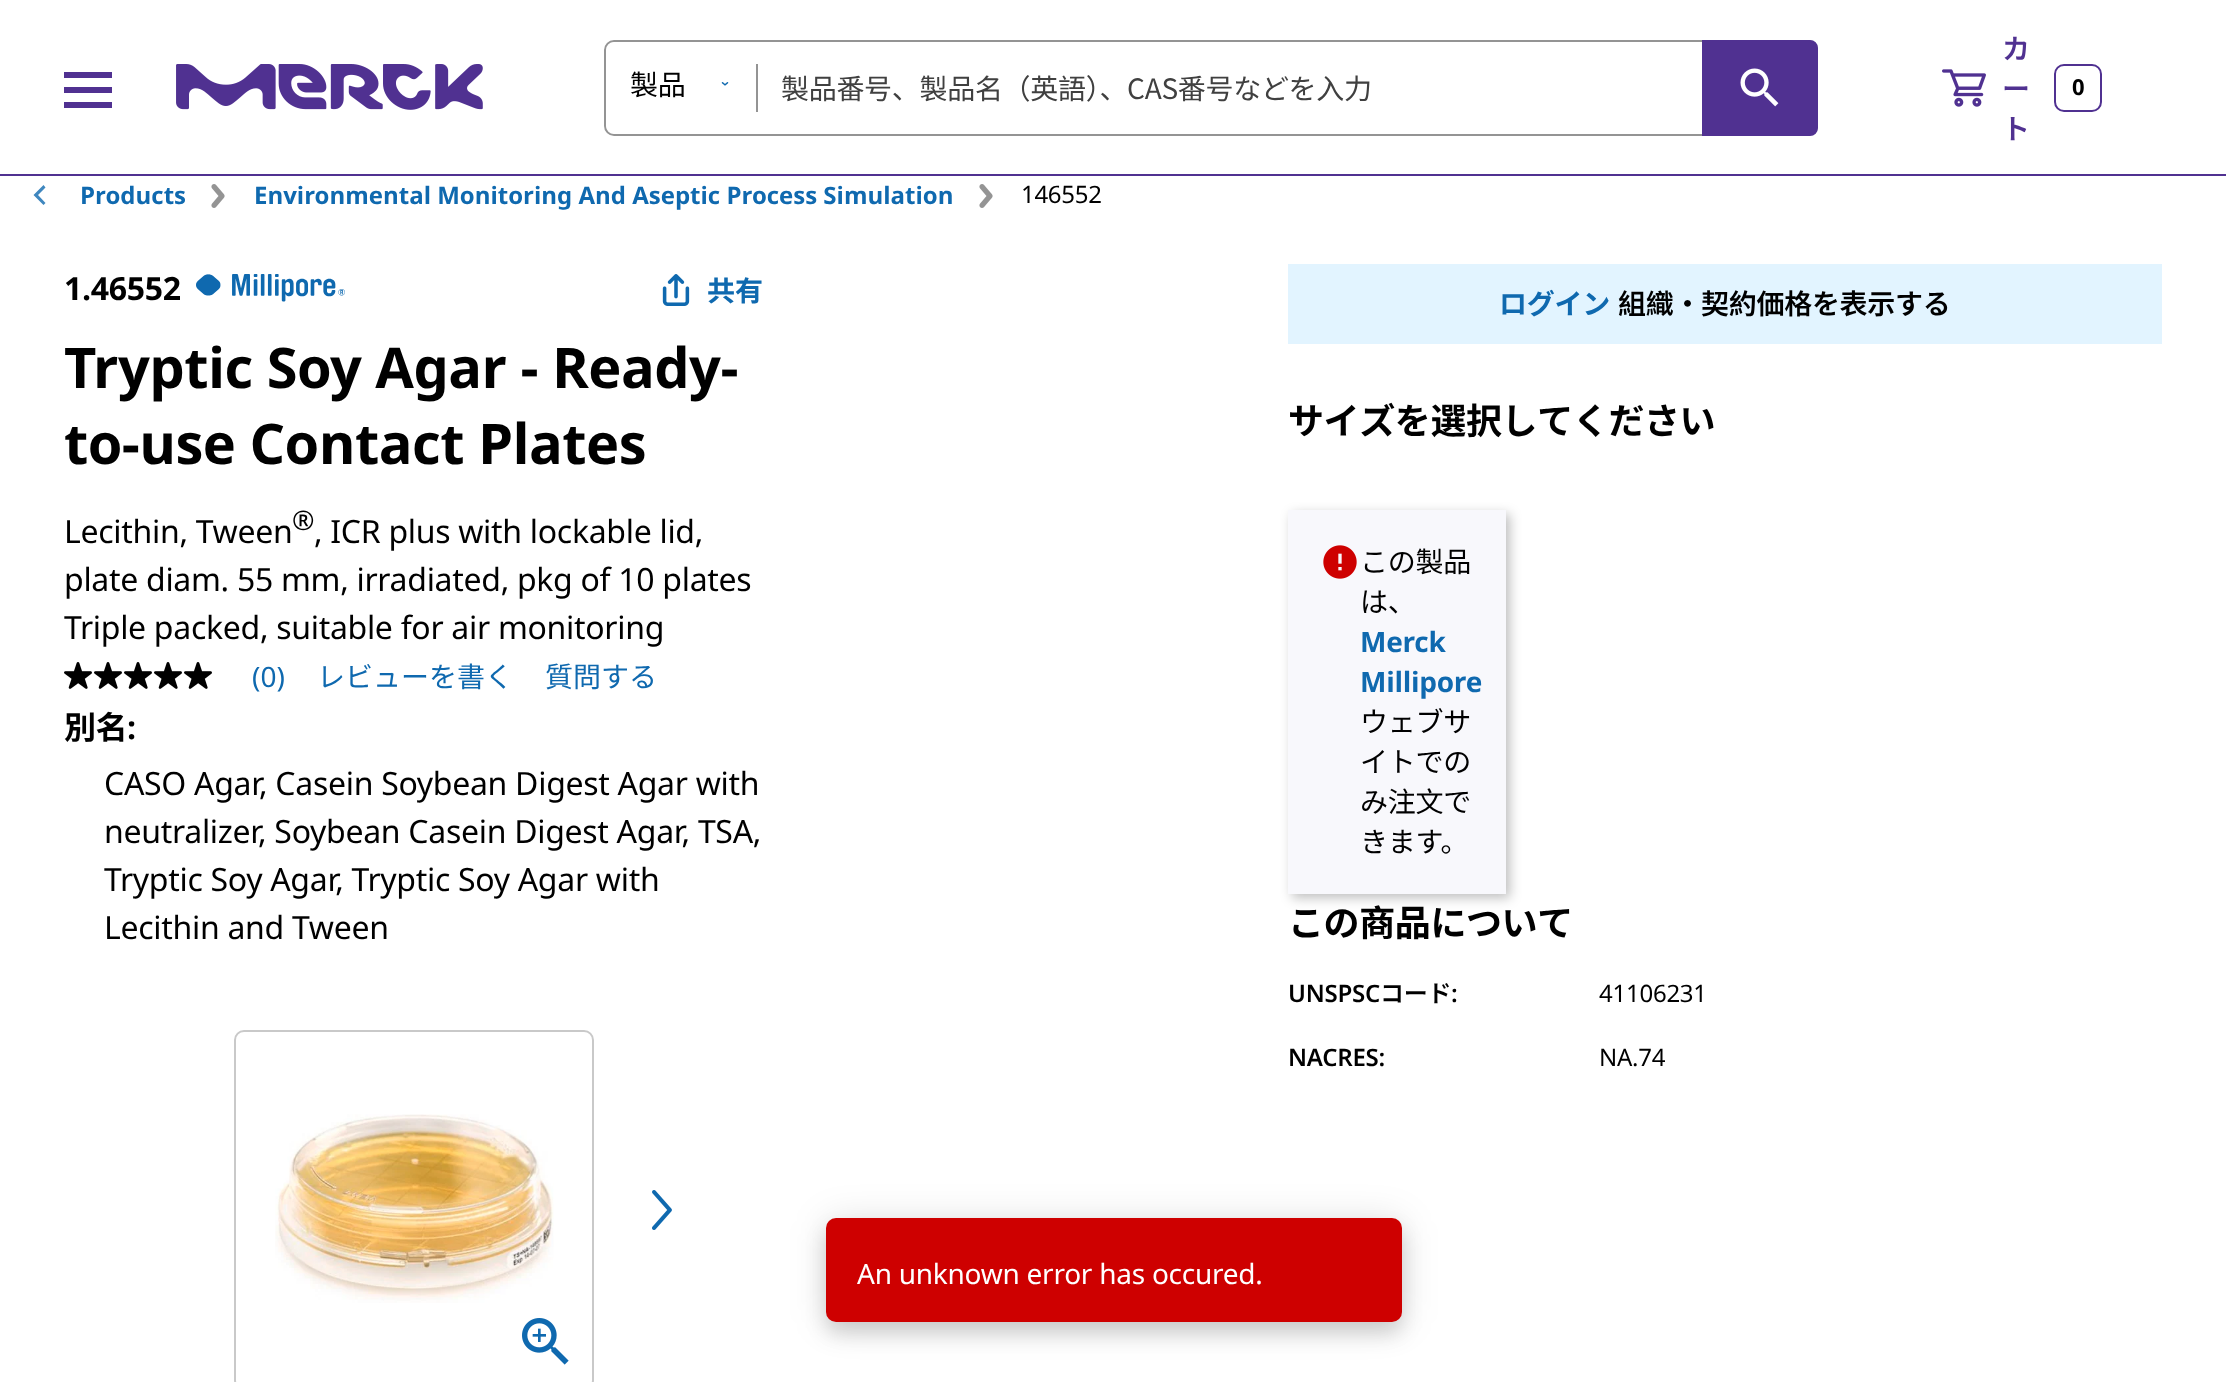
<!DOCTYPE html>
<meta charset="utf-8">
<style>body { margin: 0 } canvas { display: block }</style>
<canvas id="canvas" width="2226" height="1382"></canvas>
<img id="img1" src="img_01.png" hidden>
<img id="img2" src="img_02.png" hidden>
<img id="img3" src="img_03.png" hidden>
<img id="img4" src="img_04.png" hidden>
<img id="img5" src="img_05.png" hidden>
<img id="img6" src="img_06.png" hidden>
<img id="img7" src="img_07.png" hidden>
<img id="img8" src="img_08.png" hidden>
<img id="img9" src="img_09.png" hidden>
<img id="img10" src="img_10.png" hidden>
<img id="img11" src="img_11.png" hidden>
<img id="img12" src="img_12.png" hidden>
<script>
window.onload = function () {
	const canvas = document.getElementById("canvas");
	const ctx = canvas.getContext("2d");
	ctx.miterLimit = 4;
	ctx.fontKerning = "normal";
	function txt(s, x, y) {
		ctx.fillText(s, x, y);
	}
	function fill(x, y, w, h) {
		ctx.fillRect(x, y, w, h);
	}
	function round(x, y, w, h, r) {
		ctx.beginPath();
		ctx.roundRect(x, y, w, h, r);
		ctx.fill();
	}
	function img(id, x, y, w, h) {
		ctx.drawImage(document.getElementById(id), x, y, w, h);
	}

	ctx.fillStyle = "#FFFFFF";
	fill(0, 0, 2226, 1382);
	ctx.fillStyle = "#503191";
	fill(0, 174, 2226, 2);
	ctx.save();
	ctx.beginPath();
	ctx.rect(64, 66, 48, 48);
	ctx.clip();
	ctx.beginPath();
	ctx.moveTo(61, 108);
	ctx.lineTo(115, 108);
	ctx.lineTo(115, 102);
	ctx.lineTo(61, 102);
	ctx.closePath();
	ctx.moveTo(61, 93);
	ctx.lineTo(115, 93);
	ctx.lineTo(115, 87);
	ctx.lineTo(61, 87);
	ctx.closePath();
	ctx.moveTo(61, 72);
	ctx.lineTo(61, 78);
	ctx.lineTo(115, 78);
	ctx.lineTo(115, 72);
	ctx.closePath();
	ctx.fill();
	ctx.restore();
	img("img1", 176, 64, 307, 46);
	ctx.beginPath();
	ctx.roundRect(605, 41, 1212, 94, 9);
	ctx.strokeStyle = "#949494";
	ctx.lineWidth = 2;
	ctx.stroke();
	ctx.fillStyle = "#FFFFFF";
	round(606, 42, 152, 92, 10);
	ctx.fillStyle = "#949494";
	fill(756, 64, 2, 48);
	img("img2", 721, 82, 8, 4);
	ctx.fillStyle = "#503191";
	ctx.beginPath();
	ctx.roundRect(1703, 41, 114, 94, [0, 7, 7, 0]);
	ctx.fill();
	ctx.strokeStyle = "#503191";
	ctx.stroke();
	img("img3", 1740, 68, 39, 39);
	img("img4", 1942, 69, 44, 38);
	ctx.beginPath();
	ctx.roundRect(2055, 65, 46, 46, 9);
	ctx.stroke();
	ctx.fillStyle = "#3F87BF";
	ctx.beginPath();
	ctx.moveTo(45.5, 203);
	ctx.lineTo(38, 195);
	ctx.lineTo(45.5, 187.5);
	ctx.lineTo(43.5, 185);
	ctx.lineTo(33.5, 195);
	ctx.lineTo(43.5, 205);
	ctx.closePath();
	ctx.fill();
	img("img5", 211, 184, 14, 24);
	img("img5", 979, 184, 14, 24);
	img("img6", 196, 274, 149, 28);
	img("img7", 662, 274, 28, 32);
	img("img8", 64, 662, 28, 27);
	img("img8", 94, 662, 28, 27);
	img("img8", 124, 662, 28, 27);
	img("img8", 154, 662, 28, 27);
	img("img8", 184, 662, 28, 27);
	ctx.beginPath();
	ctx.roundRect(235, 1031, 358, 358, 9);
	ctx.strokeStyle = "#C9C9C9";
	ctx.stroke();
	img("img9", 275, 1114, 279, 189);
	img("img10", 522, 1318, 47, 47);
	img("img11", 652, 1190, 20, 40);
	ctx.fillStyle = "#E2F4FF";
	fill(1288, 264, 874, 80);
	ctx.fillStyle = "rgba(0, 0, 0, 0.25)";
	ctx.filter = "blur(6px)";
	ctx.beginPath();
	ctx.rect(1292, 514, 218, 384);
	ctx.fill();
	ctx.filter = "none";
	ctx.fillStyle = "#F8F8FC";
	fill(1288, 510, 218, 384);
	img("img12", 1323, 545, 34, 34);
	ctx.fillStyle = "rgba(0, 0, 0, 0.12)";
	ctx.filter = "blur(18px)";
	ctx.beginPath();
	ctx.roundRect(826, 1220, 576, 104, 10);
	ctx.fill();
	ctx.filter = "none";
	ctx.fillStyle = "rgba(0, 0, 0, 0.14)";
	ctx.filter = "blur(10px)";
	ctx.beginPath();
	ctx.roundRect(826, 1230, 576, 104, 10);
	ctx.fill();
	ctx.filter = "none";
	ctx.fillStyle = "#CE0000";
	round(826, 1218, 576, 104, 10);
	ctx.letterSpacing = "-0.3px";
	ctx.font = "28px Noto Sans SC";
	ctx.fillStyle = "#000000";
	txt("製品", 630, 95);
	ctx.fillStyle = "#404040";
	txt("製品番号、製品名（英語）、CAS番号などを入力", 781, 99);
	ctx.letterSpacing = "0px";
	ctx.font = "600 28px Noto Sans SC";
	ctx.fillStyle = "#503191";
	txt("カ", 2002, 59);
	txt("ー", 2002, 99);
	txt("ト", 2002, 139);
	ctx.font = "bold 22px Noto Sans";
	ctx.fillStyle = "#000000";
	txt("0", 2072, 95);
	ctx.font = "bold 24px Noto Sans";
	ctx.fillStyle = "#0F69AF";
	txt("Products", 80, 204);
	txt("Environmental Monitoring And Aseptic Process Simulation", 254, 204);
	ctx.letterSpacing = "-0.3px";
	ctx.font = "24px Noto Sans";
	ctx.fillStyle = "#000000";
	txt("146552", 1021, 203);
	ctx.font = "bold 32px Noto Sans";
	txt("1.46552", 64, 300);
	ctx.letterSpacing = "0px";
	ctx.font = "bold 28px Noto Sans SC";
	ctx.fillStyle = "#0F69AF";
	txt("共有", 707, 301);
	ctx.letterSpacing = "-0.55px";
	ctx.font = "bold 56px Noto Sans";
	ctx.fillStyle = "#000000";
	txt("Tryptic Soy Agar - Ready-", 64, 388);
	txt("to-use Contact Plates", 64, 464);
	ctx.letterSpacing = "-0.3px";
	ctx.font = "32px Noto Sans";
	txt("Lecithin, Tween", 64, 543);
	ctx.font = "27px Noto Sans";
	txt("®", 292, 530);
	ctx.font = "32px Noto Sans";
	txt(", ICR plus with lockable lid,", 314, 543);
	txt("plate diam. 55 mm, irradiated, pkg of 10 plates", 64, 591);
	txt("Triple packed, suitable for air monitoring", 64, 639);
	ctx.letterSpacing = "0px";
	ctx.font = "28px Noto Sans";
	ctx.fillStyle = "#0F69AF";
	txt("(0)", 252, 687);
	ctx.font = "28px Noto Sans SC";
	txt("レビューを書く", 317, 687);
	txt("質問する", 545, 687);
	ctx.letterSpacing = "-0.3px";
	ctx.font = "bold 32px Noto Sans SC";
	ctx.fillStyle = "#000000";
	txt("別名", 64, 739);
	ctx.font = "bold 32px Noto Sans";
	txt(":", 127, 739);
	ctx.font = "32px Noto Sans";
	txt("CASO Agar, Casein Soybean Digest Agar with", 104, 795);
	txt("neutralizer, Soybean Casein Digest Agar, TSA,", 104, 843);
	txt("Tryptic Soy Agar, Tryptic Soy Agar with", 104, 891);
	txt("Lecithin and Tween", 104, 939);
	ctx.letterSpacing = "-0.25px";
	ctx.font = "bold 28px Noto Sans SC";
	ctx.fillStyle = "#0F69AF";
	txt("ログイン", 1499, 314);
	ctx.letterSpacing = "-0.3px";
	ctx.font = "600 28px Noto Sans SC";
	ctx.fillStyle = "#000000";
	txt("組織・契約価格を表示する", 1618, 314);
	ctx.letterSpacing = "-0.4px";
	ctx.font = "bold 36px Noto Sans SC";
	txt("サイズを選択してください", 1288, 434);
	ctx.letterSpacing = "-0.25px";
	ctx.font = "28px Noto Sans SC";
	txt("この製品", 1360, 572);
	txt("は、", 1360, 612);
	ctx.font = "bold 28px Noto Sans";
	ctx.fillStyle = "#0F69AF";
	txt("Merck", 1360, 652);
	txt("Millipore", 1360, 692);
	ctx.font = "28px Noto Sans SC";
	ctx.fillStyle = "#000000";
	txt("ウェブサ", 1360, 732);
	txt("イトでの", 1360, 772);
	txt("み注文で", 1360, 812);
	txt("きます。", 1360, 852);
	ctx.letterSpacing = "-0.4px";
	ctx.font = "bold 36px Noto Sans SC";
	txt("この商品について", 1288, 936);
	ctx.letterSpacing = "-0.25px";
	ctx.font = "600 24px Noto Sans";
	txt("UNSPSC", 1288, 1002);
	ctx.font = "600 24px Noto Sans SC";
	txt("コード", 1380, 1002);
	ctx.font = "600 24px Noto Sans";
	txt(":", 1451, 1002);
	ctx.font = "24px Noto Sans";
	txt("41106231", 1599, 1002);
	ctx.font = "600 24px Noto Sans";
	txt("NACRES:", 1288, 1066);
	ctx.font = "24px Noto Sans";
	txt("NA.74", 1599, 1066);
	ctx.font = "28px Noto Sans";
	ctx.fillStyle = "#FFFFFF";
	txt("An unknown error has occured.", 857, 1284);
};
</script>
